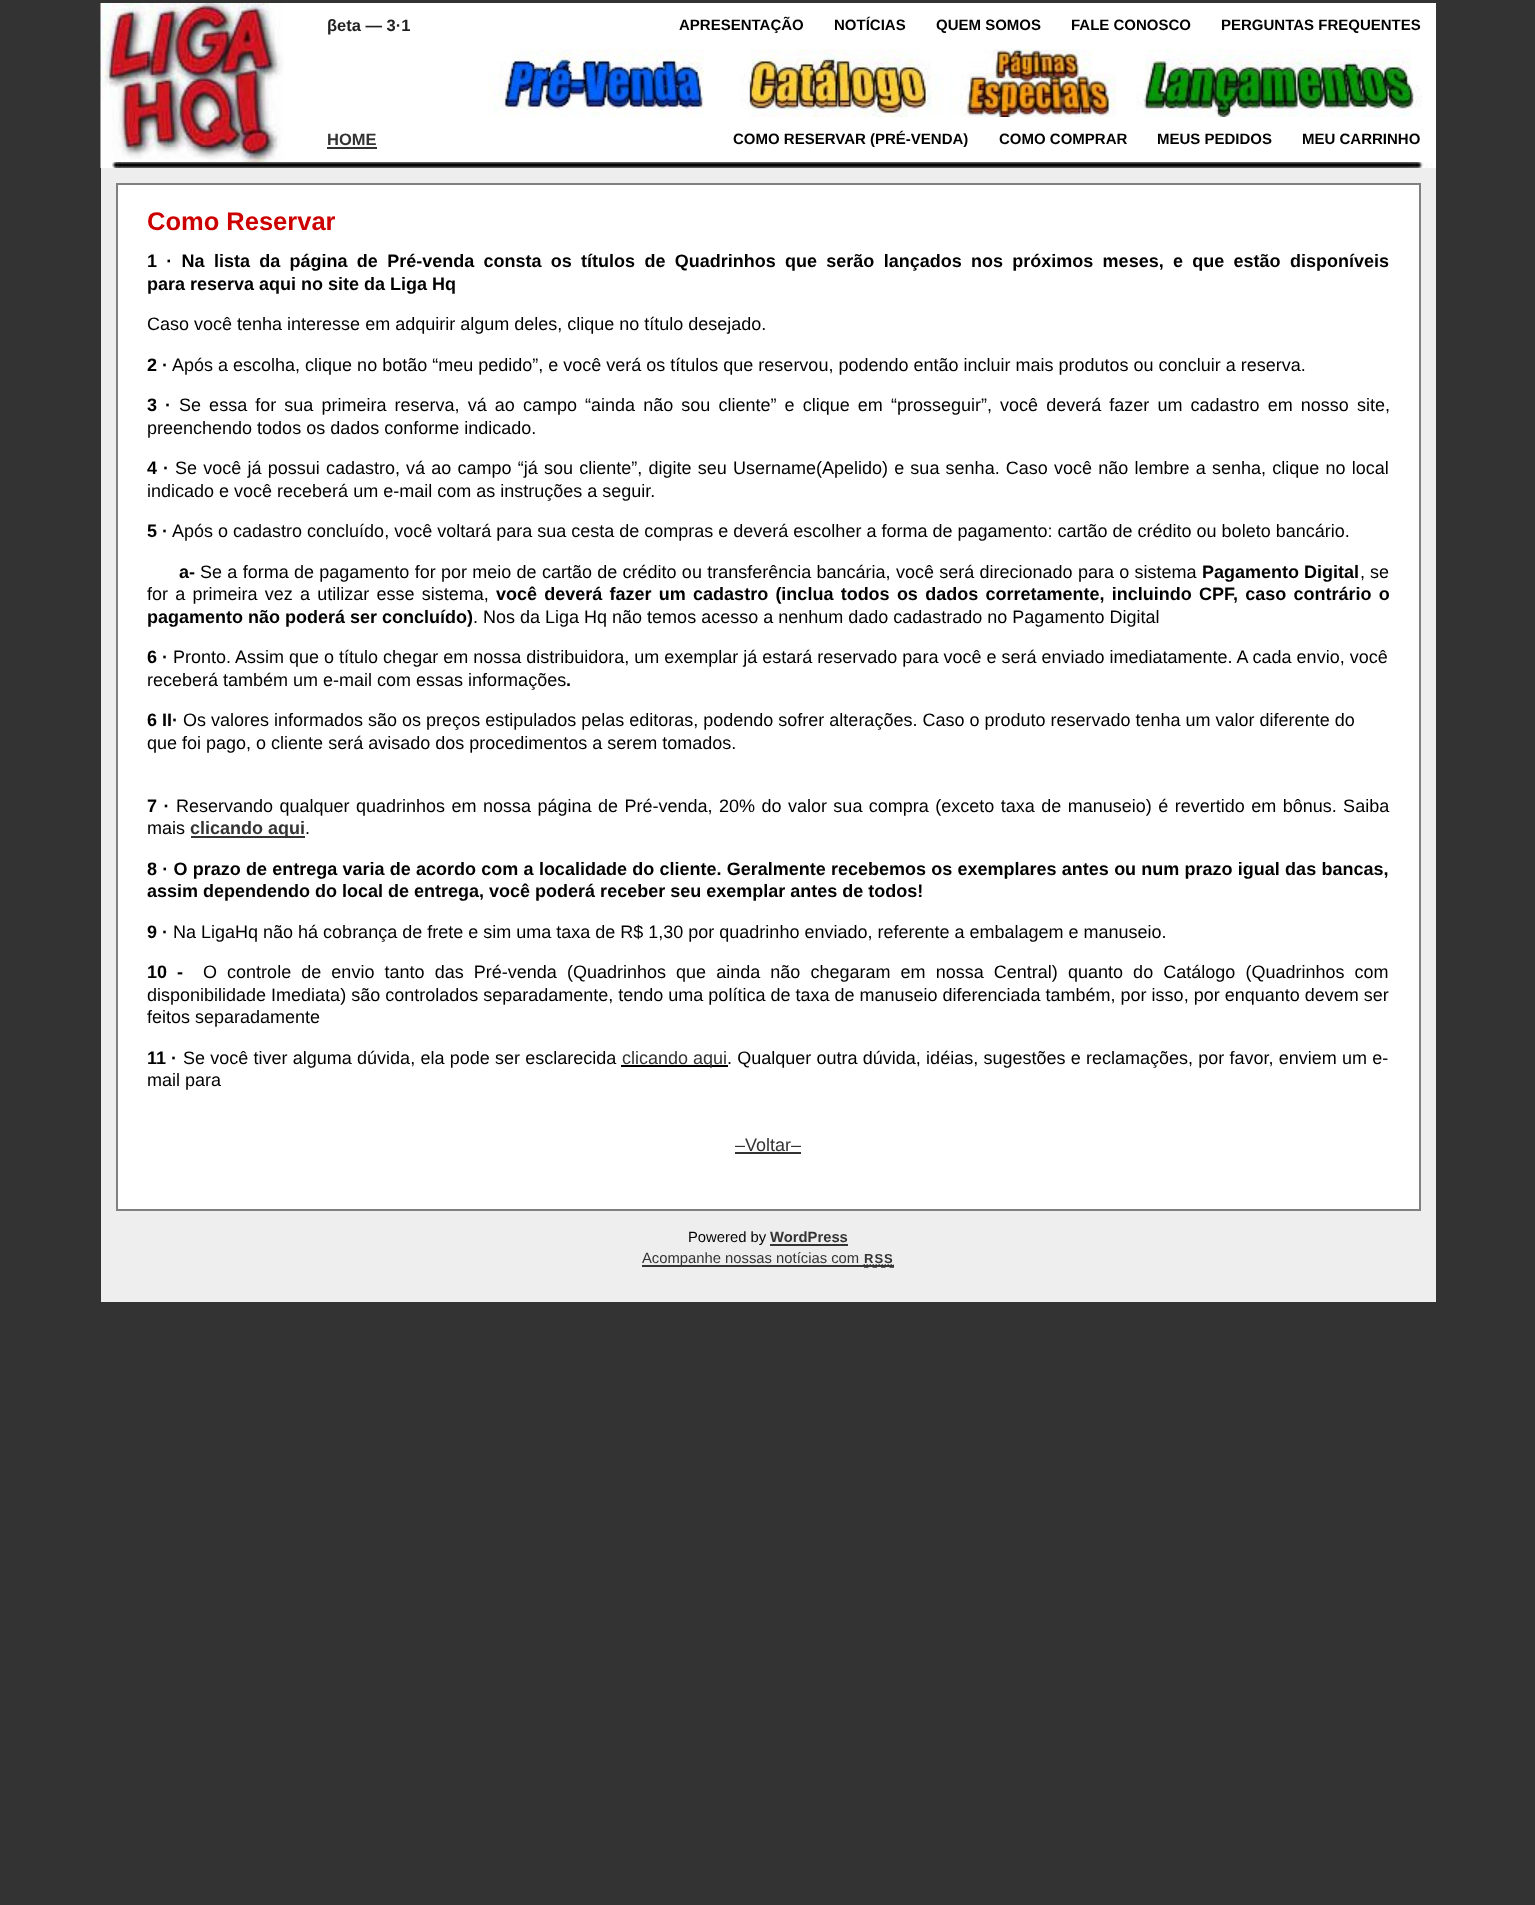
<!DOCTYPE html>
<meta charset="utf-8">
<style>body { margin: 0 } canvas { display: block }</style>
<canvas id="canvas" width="1535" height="1905"></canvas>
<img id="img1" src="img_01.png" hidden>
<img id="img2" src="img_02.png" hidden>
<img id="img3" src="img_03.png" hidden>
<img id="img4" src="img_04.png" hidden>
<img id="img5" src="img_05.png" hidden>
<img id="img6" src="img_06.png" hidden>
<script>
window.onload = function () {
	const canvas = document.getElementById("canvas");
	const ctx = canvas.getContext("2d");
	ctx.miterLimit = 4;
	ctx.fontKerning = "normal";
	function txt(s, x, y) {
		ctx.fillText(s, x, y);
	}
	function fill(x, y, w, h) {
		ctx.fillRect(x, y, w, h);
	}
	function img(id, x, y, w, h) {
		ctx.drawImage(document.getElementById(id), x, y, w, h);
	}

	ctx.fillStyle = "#333333";
	fill(0, 0, 1535, 1905);
	ctx.fillStyle = "#EEEEEE";
	fill(101, 168, 1335, 1134);
	ctx.fillStyle = "#FFFFFF";
	fill(283, 3, 1153, 165);
	img("img1", 100, 3, 184, 159);
	img("img2", 487, 49, 217, 68);
	img("img3", 740, 49, 204, 68);
	img("img4", 948, 49, 169, 68);
	img("img5", 1136, 49, 286, 68);
	ctx.fillStyle = "#333333";
	fill(327, 147, 50, 2);
	img("img6", 100, 162, 1333, 6);
	ctx.fillStyle = "#FFFFFF";
	ctx.beginPath();
	ctx.rect(117, 184, 1303, 1026);
	ctx.fill();
	ctx.strokeStyle = "#808080";
	ctx.lineWidth = 2;
	ctx.stroke();
	ctx.fillStyle = "#333333";
	fill(191, 836, 114, 2);
	ctx.fillStyle = "#000000";
	fill(621, 1065, 107, 2);
	ctx.fillStyle = "#333333";
	fill(735, 1152, 66, 2);
	fill(770, 1244, 78, 2);
	fill(642, 1265, 222, 2);
	ctx.beginPath();
	ctx.moveTo(864, 1267);
	ctx.lineTo(894, 1267);
	ctx.strokeStyle = "#333333";
	ctx.lineWidth = 1.5;
	ctx.setLineDash([4.5, 4]);
	ctx.stroke();
	ctx.beginPath();
	ctx.moveTo(863.5, 1265);
	ctx.lineTo(894, 1265);
	ctx.setLineDash([1.5, 1.5]);
	ctx.stroke();
	fill(864, 1265, 30, 2);
	ctx.font = "bold 16.5px Liberation Sans";
	ctx.fillStyle = "#222222";
	txt("βeta — 3·1", 327, 31);
	ctx.font = "bold 15px Liberation Sans";
	ctx.fillStyle = "#000000";
	txt("APRESENTAÇÃO", 679, 30);
	txt("NOTÍCIAS", 834, 30);
	txt("QUEM SOMOS", 936, 30);
	txt("FALE CONOSCO", 1071, 30);
	txt("PERGUNTAS FREQUENTES", 1221, 30);
	ctx.font = "bold 16.5px Liberation Sans";
	ctx.fillStyle = "#333333";
	txt("HOME", 327, 145);
	ctx.font = "bold 15px Liberation Sans";
	ctx.fillStyle = "#000000";
	txt("COMO RESERVAR (PRÉ-VENDA)", 733, 144);
	txt("COMO COMPRAR", 999, 144);
	txt("MEUS PEDIDOS", 1157, 144);
	txt("MEU CARRINHO", 1302, 144);
	ctx.font = "bold 25.5px Liberation Sans";
	ctx.fillStyle = "#CC0000";
	txt("Como Reservar", 147, 230);
	ctx.wordSpacing = "4.3px";
	ctx.font = "bold 18px Liberation Sans";
	ctx.fillStyle = "#000000";
	txt("1 · Na lista da página de Pré-venda consta os títulos de Quadrinhos que serão lançados nos próximos meses, e que estão disponíveis", 147, 267);
	ctx.wordSpacing = "0px";
	txt("para reserva aqui no site da Liga Hq", 147, 290);
	ctx.font = "18px Liberation Sans";
	txt("Caso você tenha interesse em adquirir algum deles, clique no título desejado.", 147, 330);
	ctx.font = "bold 18px Liberation Sans";
	txt("2 ·", 147, 371);
	ctx.font = "18px Liberation Sans";
	txt("Após a escolha, clique no botão “meu pedido”, e você verá os títulos que reservou, podendo então incluir mais produtos ou concluir a reserva.", 172, 371);
	ctx.wordSpacing = "3.1px";
	ctx.font = "bold 18px Liberation Sans";
	txt("3 ·", 147, 411);
	ctx.font = "18px Liberation Sans";
	txt("Se essa for sua primeira reserva, vá ao campo “ainda não sou cliente” e clique em “prosseguir”, você deverá fazer um cadastro em nosso site,", 179, 411);
	ctx.wordSpacing = "0px";
	txt("preenchendo todos os dados conforme indicado.", 147, 434);
	ctx.wordSpacing = "1px";
	ctx.font = "bold 18px Liberation Sans";
	txt("4 ·", 147, 474);
	ctx.wordSpacing = "1.2px";
	ctx.font = "18px Liberation Sans";
	txt("Se você já possui cadastro, vá ao campo “já sou cliente”, digite seu Username(Apelido) e sua senha. Caso você não lembre a senha, clique no local", 175, 474);
	ctx.wordSpacing = "0px";
	txt("indicado e você receberá um e-mail com as instruções a seguir.", 147, 497);
	ctx.font = "bold 18px Liberation Sans";
	txt("5 ·", 147, 537);
	ctx.font = "18px Liberation Sans";
	txt("Após o cadastro concluído, você voltará para sua cesta de compras e deverá escolher a forma de pagamento: cartão de crédito ou boleto bancário.", 172, 537);
	ctx.font = "bold 18px Liberation Sans";
	txt("a-", 179, 578);
	ctx.wordSpacing = "0.3px";
	ctx.font = "18px Liberation Sans";
	txt("Se a forma de pagamento for por meio de cartão de crédito ou transferência bancária, você será direcionado para o sistema", 200, 578);
	ctx.wordSpacing = "0px";
	ctx.font = "bold 18px Liberation Sans";
	txt("Pagamento Digital", 1202, 578);
	ctx.font = "18px Liberation Sans";
	txt(", se", 1360, 578);
	ctx.wordSpacing = "2.25px";
	txt("for a primeira vez a utilizar esse sistema,", 147, 600);
	ctx.font = "bold 18px Liberation Sans";
	txt("você deverá fazer um cadastro (inclua todos os dados corretamente, incluindo CPF, caso contrário o", 496, 600);
	ctx.wordSpacing = "0px";
	txt("pagamento não poderá ser concluído)", 147, 623);
	ctx.font = "18px Liberation Sans";
	txt(". Nos da Liga Hq não temos acesso a nenhum dado cadastrado no Pagamento Digital", 473, 623);
	ctx.font = "bold 18px Liberation Sans";
	txt("6 ·", 147, 663);
	ctx.font = "18px Liberation Sans";
	txt("Pronto. Assim que o título chegar em nossa distribuidora, um exemplar já estará reservado para você e será enviado imediatamente. A cada envio, você", 173, 663);
	txt("receberá também um e-mail com essas informações", 147, 686);
	ctx.font = "bold 18px Liberation Sans";
	txt(".", 566, 686);
	txt("6 II·", 147, 726);
	ctx.font = "18px Liberation Sans";
	txt("Os valores informados são os preços estipulados pelas editoras, podendo sofrer alterações. Caso o produto reservado tenha um valor diferente do", 183, 726);
	txt("que foi pago, o cliente será avisado dos procedimentos a serem tomados.", 147, 749);
	ctx.wordSpacing = "1.45px";
	ctx.font = "bold 18px Liberation Sans";
	txt("7 ·", 147, 812);
	ctx.font = "18px Liberation Sans";
	txt("Reservando qualquer quadrinhos em nossa página de Pré-venda, 20% do valor sua compra (exceto taxa de manuseio) é revertido em bônus. Saiba", 176, 812);
	ctx.wordSpacing = "0px";
	txt("mais", 147, 834);
	ctx.font = "bold 18px Liberation Sans";
	ctx.fillStyle = "#333333";
	txt("clicando aqui", 190, 834);
	ctx.font = "18px Liberation Sans";
	ctx.fillStyle = "#000000";
	txt(".", 305, 834);
	ctx.wordSpacing = "0.25px";
	ctx.font = "bold 18px Liberation Sans";
	txt("8 · O prazo de entrega varia de acordo com a localidade do cliente. Geralmente recebemos os exemplares antes ou num prazo igual das bancas,", 147, 875);
	ctx.wordSpacing = "0px";
	txt("assim dependendo do local de entrega, você poderá receber seu exemplar antes de todos!", 147, 897);
	txt("9 ·", 147, 938);
	ctx.font = "18px Liberation Sans";
	txt("Na LigaHq não há cobrança de frete e sim uma taxa de R$ 1,30 por quadrinho enviado, referente a embalagem e manuseio.", 173, 938);
	ctx.wordSpacing = "5.1px";
	ctx.font = "bold 18px Liberation Sans";
	txt("10 -", 147, 978);
	ctx.font = "18px Liberation Sans";
	txt("O controle de envio tanto das Pré-venda (Quadrinhos que ainda não chegaram em nossa Central) quanto do Catálogo (Quadrinhos com", 203, 978);
	ctx.wordSpacing = "0px";
	txt("disponibilidade Imediata) são controlados separadamente, tendo uma política de taxa de manuseio diferenciada também, por isso, por enquanto devem ser", 147, 1001);
	txt("feitos separadamente", 147, 1023);
	ctx.font = "bold 18px Liberation Sans";
	txt("11 ·", 147, 1064);
	ctx.wordSpacing = "0.25px";
	ctx.font = "18px Liberation Sans";
	txt("Se você tiver alguma dúvida, ela pode ser esclarecida", 183, 1064);
	ctx.wordSpacing = "0px";
	ctx.fillStyle = "#333333";
	txt("clicando aqui", 622, 1064);
	ctx.wordSpacing = "0.25px";
	ctx.fillStyle = "#000000";
	txt(". Qualquer outra dúvida, idéias, sugestões e reclamações, por favor, enviem um e-", 727, 1064);
	ctx.wordSpacing = "0px";
	txt("mail para", 147, 1086);
	ctx.fillStyle = "#333333";
	txt("–Voltar–", 735, 1151);
	ctx.font = "14.8px Liberation Sans";
	ctx.fillStyle = "#000000";
	txt("Powered by", 688, 1242);
	ctx.font = "bold 14.8px Liberation Sans";
	ctx.fillStyle = "#333333";
	txt("WordPress", 770, 1242);
	ctx.font = "14.8px Liberation Sans";
	txt("Acompanhe nossas notícias com", 642, 1263);
	ctx.letterSpacing = "1px";
	ctx.font = "bold 13px Liberation Sans";
	txt("RSS", 864, 1263);
};
</script>
